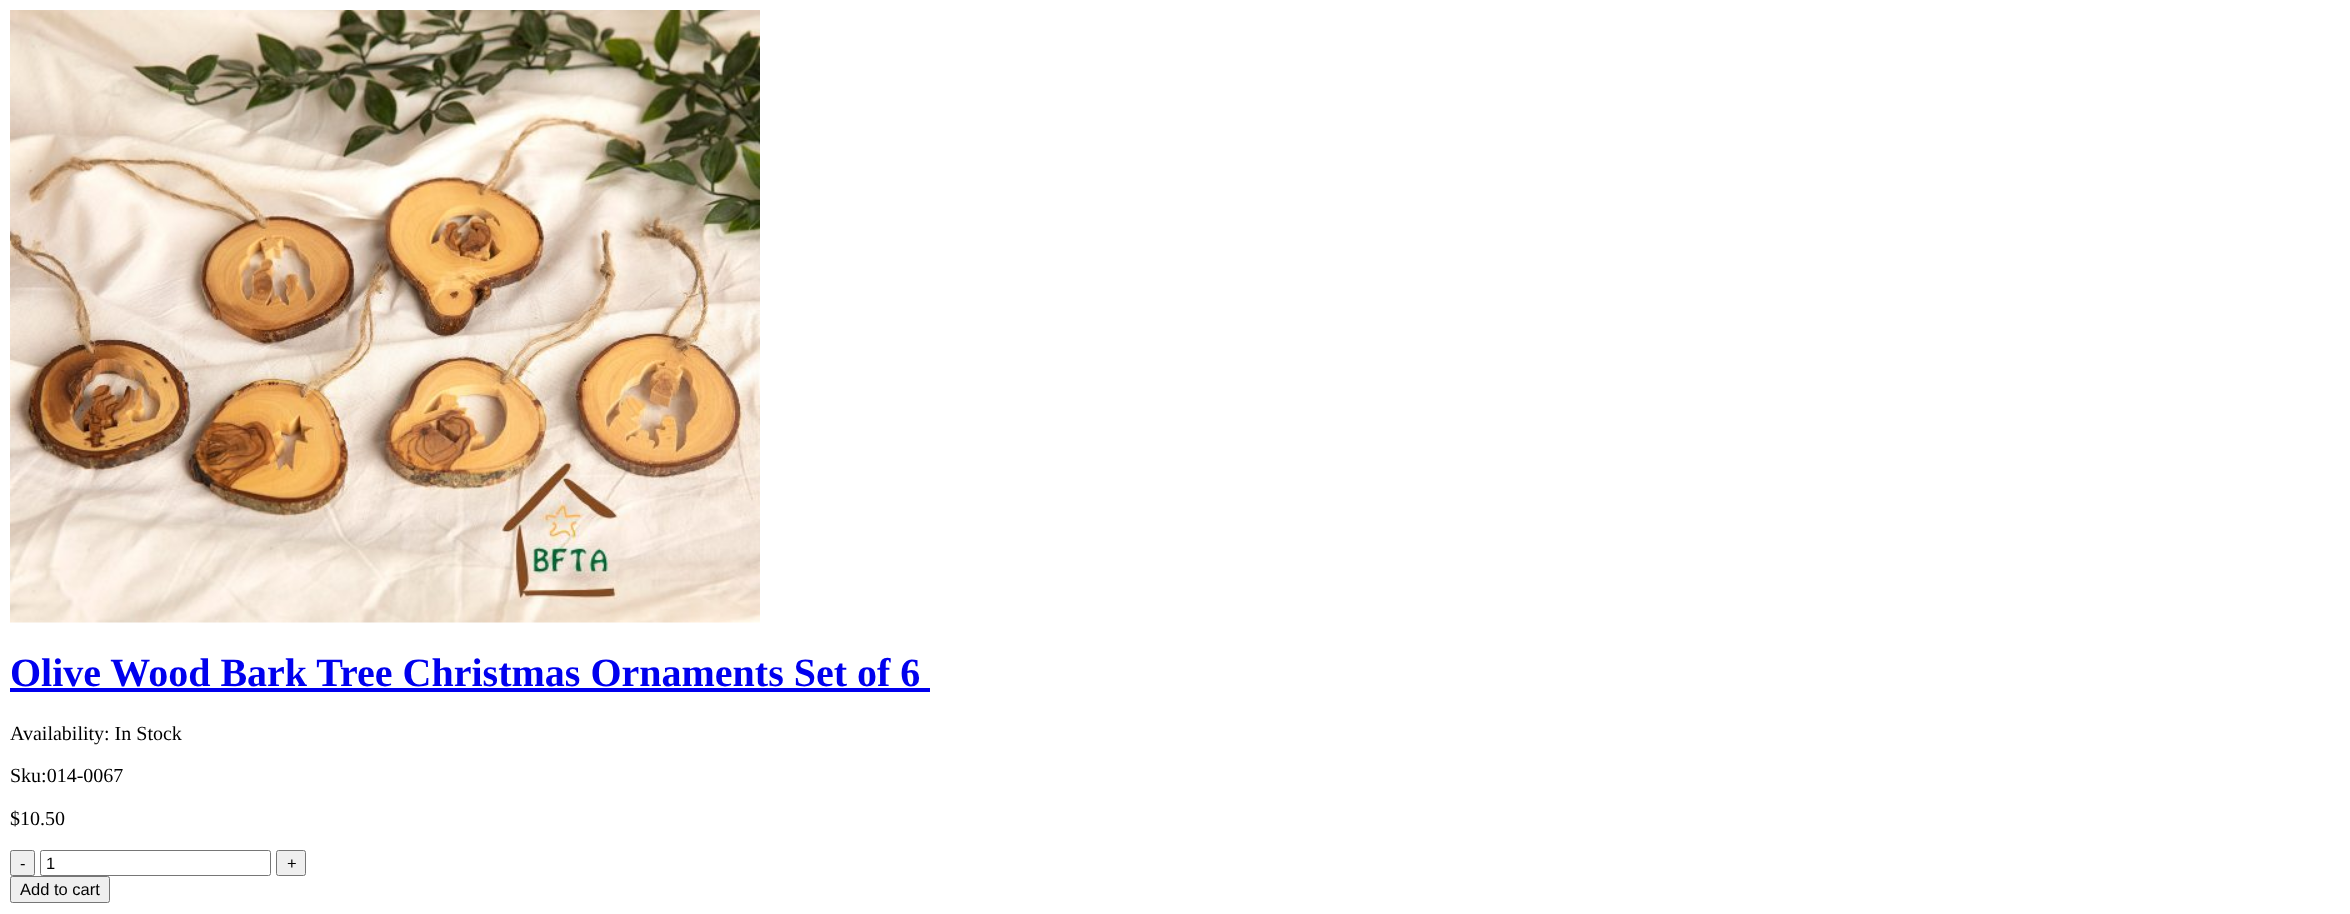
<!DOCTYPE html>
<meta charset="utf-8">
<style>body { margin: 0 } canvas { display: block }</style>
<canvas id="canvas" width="2350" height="914"></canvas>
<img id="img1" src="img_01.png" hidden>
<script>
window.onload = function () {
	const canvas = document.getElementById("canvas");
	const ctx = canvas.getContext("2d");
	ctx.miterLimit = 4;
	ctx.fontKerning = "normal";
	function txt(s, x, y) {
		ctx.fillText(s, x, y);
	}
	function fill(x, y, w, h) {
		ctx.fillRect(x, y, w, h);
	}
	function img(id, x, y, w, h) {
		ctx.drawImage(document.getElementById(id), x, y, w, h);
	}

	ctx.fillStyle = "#FFFFFF";
	fill(0, 0, 2350, 914);
	img("img1", 10, 10, 750, 613);
	ctx.fillStyle = "#0000EE";
	fill(10, 688, 920, 4);
	ctx.fillStyle = "#EFEFEF";
	ctx.beginPath();
	ctx.roundRect(10.5, 850.5, 24, 25, 2);
	ctx.fill();
	ctx.strokeStyle = "#767676";
	ctx.stroke();
	ctx.beginPath();
	ctx.roundRect(40.5, 850.5, 230, 25, 2);
	ctx.stroke();
	ctx.beginPath();
	ctx.roundRect(276.5, 850.5, 29, 25, 2);
	ctx.fill();
	ctx.stroke();
	ctx.beginPath();
	ctx.roundRect(10.5, 876.5, 99, 26, 2);
	ctx.fill();
	ctx.stroke();
	ctx.font = "bold 40px Liberation Serif";
	ctx.fillStyle = "#0000EE";
	txt("Olive Wood Bark Tree Christmas Ornaments Set of 6", 10, 686);
	ctx.font = "20px Liberation Serif";
	ctx.fillStyle = "#000000";
	txt("Availability: In Stock", 10, 740);
	txt("Sku:014-0067", 10, 782);
	txt("$10.50", 10, 825);
	ctx.font = "16.5px Liberation Sans";
	txt("-", 20, 869);
	txt("1", 46, 869);
	txt("+", 287, 869);
	txt("Add to cart", 20, 895);
};
</script>
